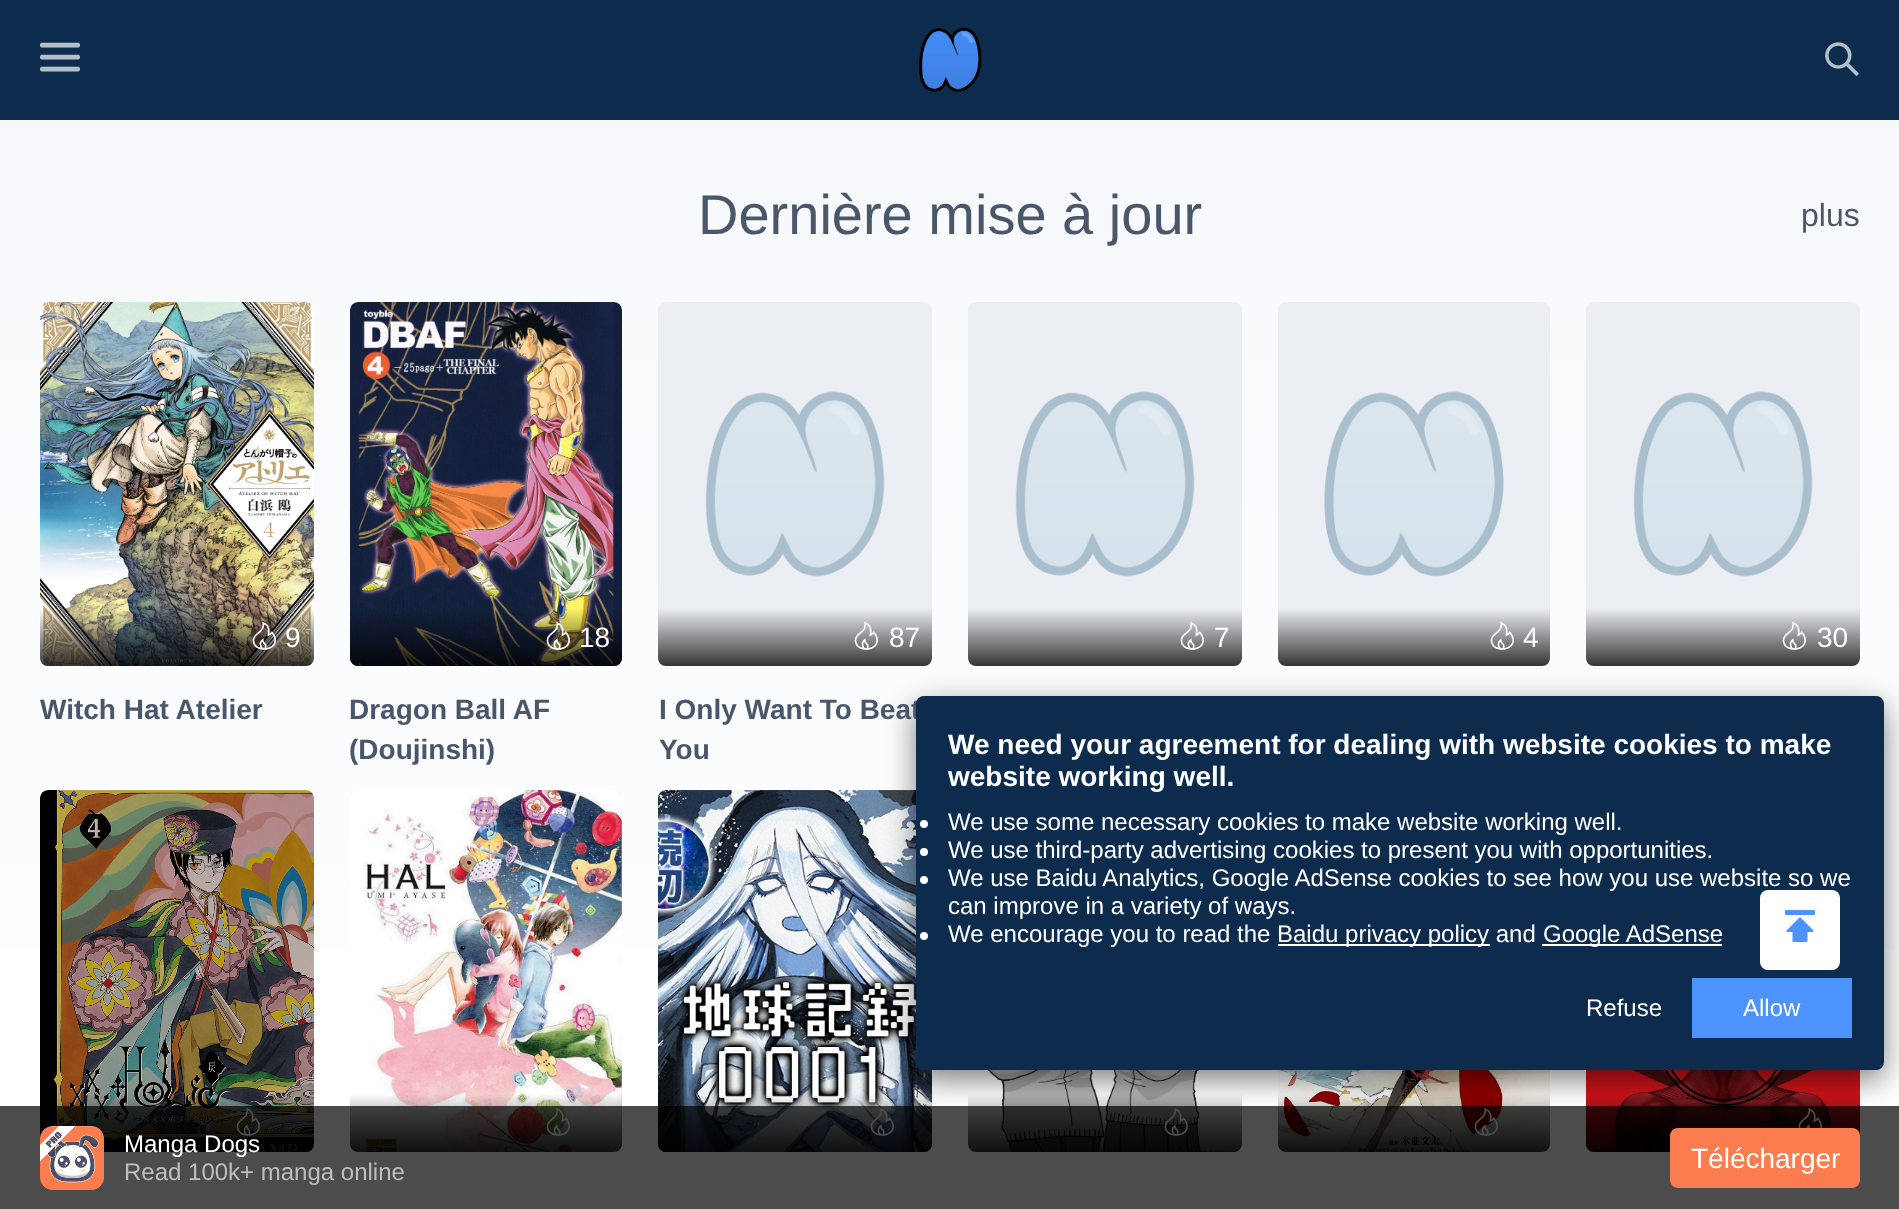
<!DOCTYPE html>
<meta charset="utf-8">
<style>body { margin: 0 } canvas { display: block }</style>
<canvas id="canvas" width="1899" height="1209"></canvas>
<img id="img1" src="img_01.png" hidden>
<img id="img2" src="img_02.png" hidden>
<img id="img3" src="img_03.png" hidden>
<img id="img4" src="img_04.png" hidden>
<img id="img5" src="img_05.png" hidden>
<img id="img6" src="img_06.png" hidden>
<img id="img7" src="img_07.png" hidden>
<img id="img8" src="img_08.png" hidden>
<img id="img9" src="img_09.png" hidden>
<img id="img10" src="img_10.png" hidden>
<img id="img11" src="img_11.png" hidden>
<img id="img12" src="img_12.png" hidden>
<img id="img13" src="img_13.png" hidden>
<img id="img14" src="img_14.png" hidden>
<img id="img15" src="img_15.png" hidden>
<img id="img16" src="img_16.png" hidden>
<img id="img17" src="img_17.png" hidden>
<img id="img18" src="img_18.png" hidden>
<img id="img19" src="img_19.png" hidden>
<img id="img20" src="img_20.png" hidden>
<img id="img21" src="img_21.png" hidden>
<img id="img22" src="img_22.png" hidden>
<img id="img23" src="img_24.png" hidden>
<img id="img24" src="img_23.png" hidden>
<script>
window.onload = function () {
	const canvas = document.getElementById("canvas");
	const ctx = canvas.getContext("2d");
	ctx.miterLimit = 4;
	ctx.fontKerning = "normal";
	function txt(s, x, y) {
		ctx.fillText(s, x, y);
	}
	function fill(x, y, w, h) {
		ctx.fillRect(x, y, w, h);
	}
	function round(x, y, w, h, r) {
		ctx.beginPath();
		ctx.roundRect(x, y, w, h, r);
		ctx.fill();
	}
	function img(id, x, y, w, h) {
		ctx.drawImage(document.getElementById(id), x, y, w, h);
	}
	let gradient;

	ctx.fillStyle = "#FFFFFF";
	fill(0, 0, 1899, 1209);
	ctx.fillStyle = "#0C2B4D";
	fill(0, 0, 1899, 120);
	img("img1", 40, 42, 40, 30);
	img("img2", 919, 27, 63, 65);
	img("img3", 1825, 42, 34, 34);
	gradient = ctx.createLinearGradient(950, 120, 950, 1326);
	gradient.addColorStop(0, "#F7F9FC");
	gradient.addColorStop(1, "#FFFFFF");
	ctx.fillStyle = gradient;
	fill(0, 120, 1899, 829);
	ctx.fillStyle = "#EBEEF2";
	round(40, 302, 274, 364, 8);
	img("img4", 40, 302, 274, 364);
	gradient = ctx.createLinearGradient(177, 608, 177, 666);
	gradient.addColorStop(0, "rgba(0, 0, 0, 0)");
	gradient.addColorStop(1, "rgba(0, 0, 0, 0.78)");
	ctx.fillStyle = gradient;
	ctx.beginPath();
	ctx.roundRect(40, 608, 274, 58, [0, 0, 8, 8]);
	ctx.fill();
	img("img5", 252, 621, 24, 29);
	ctx.fillStyle = "#EBEEF2";
	round(350, 302, 272, 364, 8);
	img("img6", 350, 302, 272, 364);
	gradient = ctx.createLinearGradient(486, 608, 486, 666);
	gradient.addColorStop(0, "rgba(0, 0, 0, 0)");
	gradient.addColorStop(1, "rgba(0, 0, 0, 0.78)");
	ctx.fillStyle = gradient;
	ctx.beginPath();
	ctx.roundRect(350, 608, 272, 58, [0, 0, 8, 8]);
	ctx.fill();
	img("img7", 546, 621, 24, 29);
	ctx.fillStyle = "#EBEEF2";
	round(658, 302, 274, 364, 8);
	img("img8", 705, 391, 180, 186);
	gradient = ctx.createLinearGradient(795, 608, 795, 666);
	gradient.addColorStop(0, "rgba(0, 0, 0, 0)");
	gradient.addColorStop(1, "rgba(0, 0, 0, 0.78)");
	ctx.fillStyle = gradient;
	ctx.beginPath();
	ctx.roundRect(658, 608, 274, 58, [0, 0, 8, 8]);
	ctx.fill();
	img("img9", 854, 621, 24, 29);
	ctx.fillStyle = "#EBEEF2";
	round(968, 302, 274, 364, 8);
	img("img8", 1015, 391, 180, 186);
	gradient = ctx.createLinearGradient(1105, 608, 1105, 666);
	gradient.addColorStop(0, "rgba(0, 0, 0, 0)");
	gradient.addColorStop(1, "rgba(0, 0, 0, 0.78)");
	ctx.fillStyle = gradient;
	ctx.beginPath();
	ctx.roundRect(968, 608, 274, 58, [0, 0, 8, 8]);
	ctx.fill();
	img("img9", 1180, 621, 24, 29);
	ctx.fillStyle = "#EBEEF2";
	round(1278, 302, 272, 364, 8);
	img("img10", 1324, 391, 180, 186);
	gradient = ctx.createLinearGradient(1414, 608, 1414, 666);
	gradient.addColorStop(0, "rgba(0, 0, 0, 0)");
	gradient.addColorStop(1, "rgba(0, 0, 0, 0.78)");
	ctx.fillStyle = gradient;
	ctx.beginPath();
	ctx.roundRect(1278, 608, 272, 58, [0, 0, 8, 8]);
	ctx.fill();
	img("img9", 1490, 621, 24, 29);
	ctx.fillStyle = "#EBEEF2";
	round(1586, 302, 274, 364, 8);
	img("img8", 1633, 391, 180, 186);
	gradient = ctx.createLinearGradient(1723, 608, 1723, 666);
	gradient.addColorStop(0, "rgba(0, 0, 0, 0)");
	gradient.addColorStop(1, "rgba(0, 0, 0, 0.78)");
	ctx.fillStyle = gradient;
	ctx.beginPath();
	ctx.roundRect(1586, 608, 274, 58, [0, 0, 8, 8]);
	ctx.fill();
	img("img9", 1782, 621, 24, 29);
	ctx.fillStyle = "#EBEEF2";
	round(40, 790, 274, 362, 8);
	img("img11", 40, 790, 274, 362);
	gradient = ctx.createLinearGradient(177, 1094, 177, 1152);
	gradient.addColorStop(0, "rgba(0, 0, 0, 0)");
	gradient.addColorStop(1, "rgba(0, 0, 0, 0.78)");
	ctx.fillStyle = gradient;
	ctx.beginPath();
	ctx.roundRect(40, 1094, 274, 58, [0, 0, 8, 8]);
	ctx.fill();
	img("img12", 236, 1107, 24, 29);
	ctx.fillStyle = "#EBEEF2";
	round(350, 790, 272, 362, 8);
	img("img13", 350, 790, 272, 362);
	gradient = ctx.createLinearGradient(486, 1094, 486, 1152);
	gradient.addColorStop(0, "rgba(0, 0, 0, 0)");
	gradient.addColorStop(1, "rgba(0, 0, 0, 0.78)");
	ctx.fillStyle = gradient;
	ctx.beginPath();
	ctx.roundRect(350, 1094, 272, 58, [0, 0, 8, 8]);
	ctx.fill();
	img("img14", 546, 1107, 24, 29);
	ctx.fillStyle = "#EBEEF2";
	round(658, 790, 274, 362, 8);
	img("img15", 658, 790, 274, 362);
	gradient = ctx.createLinearGradient(795, 1094, 795, 1152);
	gradient.addColorStop(0, "rgba(0, 0, 0, 0)");
	gradient.addColorStop(1, "rgba(0, 0, 0, 0.78)");
	ctx.fillStyle = gradient;
	ctx.beginPath();
	ctx.roundRect(658, 1094, 274, 58, [0, 0, 8, 8]);
	ctx.fill();
	img("img16", 870, 1107, 24, 29);
	ctx.fillStyle = "#EBEEF2";
	round(968, 790, 274, 362, 8);
	img("img17", 968, 1070, 274, 82);
	gradient = ctx.createLinearGradient(1105, 1094, 1105, 1152);
	gradient.addColorStop(0, "rgba(0, 0, 0, 0)");
	gradient.addColorStop(1, "rgba(0, 0, 0, 0.78)");
	ctx.fillStyle = gradient;
	ctx.beginPath();
	ctx.roundRect(968, 1094, 274, 58, [0, 0, 8, 8]);
	ctx.fill();
	img("img18", 1164, 1107, 24, 29);
	ctx.fillStyle = "#EBEEF2";
	round(1278, 790, 272, 362, 8);
	img("img19", 1278, 1070, 272, 82);
	gradient = ctx.createLinearGradient(1414, 1094, 1414, 1152);
	gradient.addColorStop(0, "rgba(0, 0, 0, 0)");
	gradient.addColorStop(1, "rgba(0, 0, 0, 0.78)");
	ctx.fillStyle = gradient;
	ctx.beginPath();
	ctx.roundRect(1278, 1094, 272, 58, [0, 0, 8, 8]);
	ctx.fill();
	img("img20", 1474, 1107, 24, 29);
	ctx.fillStyle = "#EBEEF2";
	round(1586, 790, 274, 362, 8);
	img("img21", 1586, 1070, 274, 82);
	gradient = ctx.createLinearGradient(1723, 1094, 1723, 1152);
	gradient.addColorStop(0, "rgba(0, 0, 0, 0)");
	gradient.addColorStop(1, "rgba(0, 0, 0, 0.78)");
	ctx.fillStyle = gradient;
	ctx.beginPath();
	ctx.roundRect(1586, 1094, 274, 58, [0, 0, 8, 8]);
	ctx.fill();
	img("img22", 1798, 1107, 24, 21);
	ctx.fillStyle = "rgba(0, 0, 0, 0.5)";
	ctx.filter = "blur(15px)";
	ctx.beginPath();
	ctx.roundRect(916, 706, 968, 374, 8);
	ctx.fill();
	ctx.filter = "none";
	ctx.fillStyle = "rgba(0, 0, 0, 0.7)";
	fill(0, 1106, 1899, 103);
	img("img23", 40, 1126, 64, 64);
	ctx.fillStyle = "#FB7C4F";
	round(1670, 1128, 190, 60, 8);
	ctx.font = "56px Liberation Sans";
	ctx.fillStyle = "#4A576B";
	txt("Dernière mise à jour", 698, 234);
	ctx.font = "32px Liberation Sans";
	txt("plus", 1801, 226);
	ctx.font = "28px Liberation Sans";
	ctx.fillStyle = "#FFFFFF";
	txt("9", 285, 647);
	ctx.font = "bold 28px Liberation Sans";
	ctx.fillStyle = "#4A576B";
	txt("Witch Hat Atelier", 40, 719);
	ctx.font = "28px Liberation Sans";
	ctx.fillStyle = "#FFFFFF";
	txt("18", 579, 647);
	ctx.font = "bold 28px Liberation Sans";
	ctx.fillStyle = "#4A576B";
	txt("Dragon Ball AF", 349, 719);
	txt("(Doujinshi)", 349, 759);
	ctx.font = "28px Liberation Sans";
	ctx.fillStyle = "#FFFFFF";
	txt("87", 889, 647);
	ctx.font = "bold 28px Liberation Sans";
	ctx.fillStyle = "#4A576B";
	txt("I Only Want To Beat", 659, 719);
	txt("You", 659, 759);
	ctx.font = "28px Liberation Sans";
	ctx.fillStyle = "#FFFFFF";
	txt("7", 1214, 647);
	txt("4", 1523, 647);
	txt("30", 1817, 647);
	ctx.fillStyle = "#0C2B4D";
	round(916, 696, 968, 374, 8);
	ctx.font = "bold 28px Liberation Sans";
	ctx.fillStyle = "#FFFFFF";
	txt("We need your agreement for dealing with website cookies to make", 948, 754);
	txt("website working well.", 948, 786);
	ctx.beginPath();
	ctx.arc(924, 824, 4, 0, Math.PI * 2);
	ctx.fill();
	ctx.font = "24px Liberation Sans";
	txt("We use some necessary cookies to make website working well.", 948, 830);
	ctx.beginPath();
	ctx.arc(924, 852, 4, 0, Math.PI * 2);
	ctx.fill();
	txt("We use third-party advertising cookies to present you with opportunities.", 948, 858);
	ctx.beginPath();
	ctx.arc(924, 880, 4, 0, Math.PI * 2);
	ctx.fill();
	txt("We use Baidu Analytics, Google AdSense cookies to see how you use website so we", 948, 886);
	txt("can improve in a variety of ways.", 948, 914);
	ctx.beginPath();
	ctx.arc(924, 936, 4, 0, Math.PI * 2);
	ctx.fill();
	txt("We encourage you to read the", 948, 942);
	fill(1278, 944, 212, 2);
	txt("Baidu privacy policy and", 1277, 942);
	fill(1542, 944, 180, 2);
	txt("Google AdSense", 1543, 942);
	txt("Refuse", 1586, 1016);
	ctx.fillStyle = "#4D93FF";
	fill(1692, 978, 160, 60);
	ctx.fillStyle = "#FFFFFF";
	txt("Allow", 1743, 1016);
	round(1760, 890, 80, 80, 8);
	img("img24", 1785, 910, 30, 32);
	txt("Manga Dogs", 124, 1152);
	ctx.fillStyle = "#BEBEBE";
	txt("Read 100k+ manga online", 124, 1180);
	ctx.font = "28px Liberation Sans";
	ctx.fillStyle = "#FFFFFF";
	txt("Télécharger", 1691, 1168);
};
</script>
